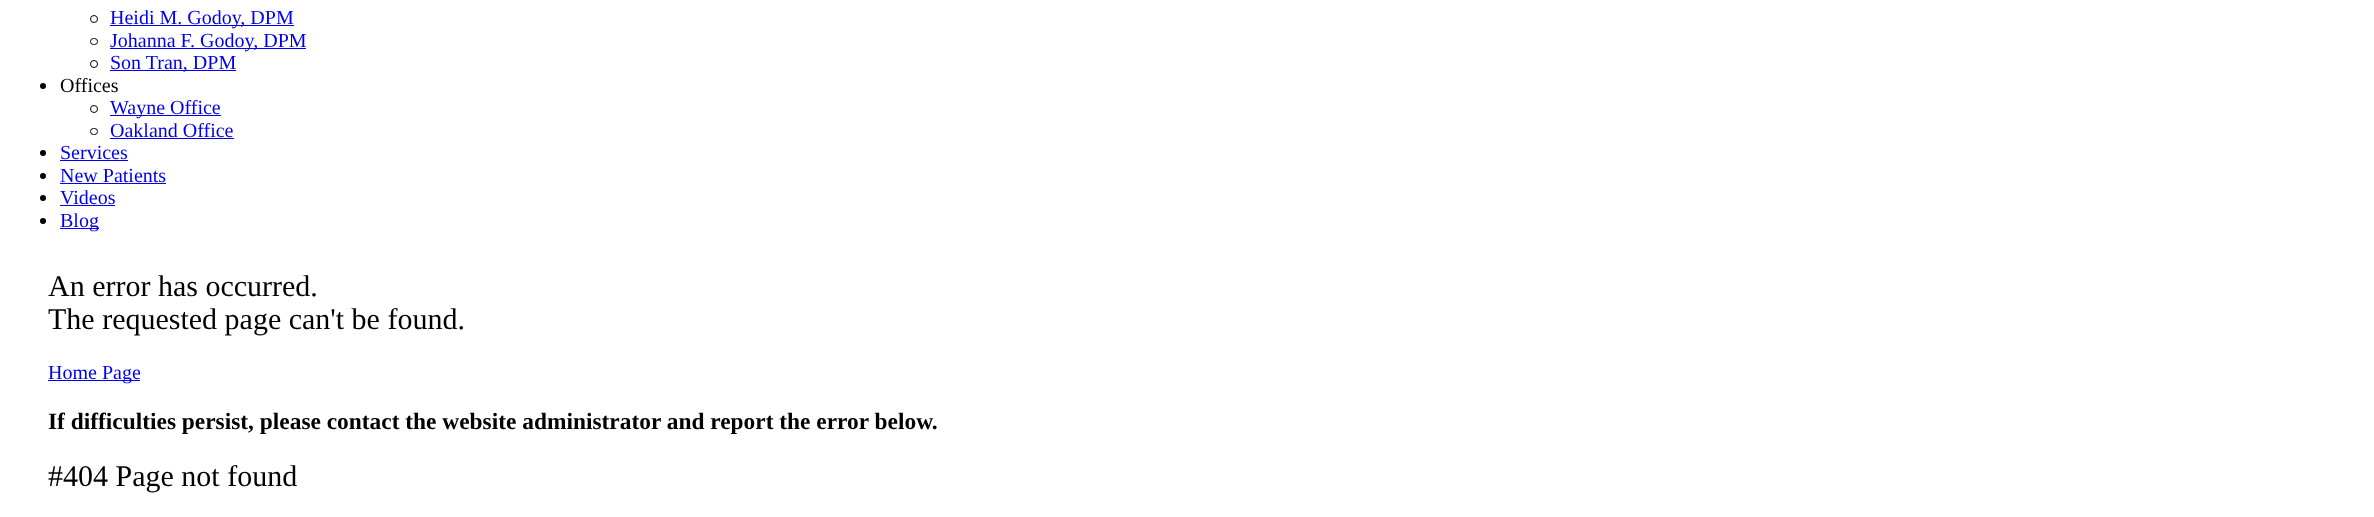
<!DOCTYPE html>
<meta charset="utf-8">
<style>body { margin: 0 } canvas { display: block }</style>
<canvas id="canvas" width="2374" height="517"></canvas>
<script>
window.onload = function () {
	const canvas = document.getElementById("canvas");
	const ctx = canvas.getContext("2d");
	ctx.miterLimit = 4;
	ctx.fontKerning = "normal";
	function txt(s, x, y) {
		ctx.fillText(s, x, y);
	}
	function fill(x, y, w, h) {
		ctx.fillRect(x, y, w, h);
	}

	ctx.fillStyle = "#FFFFFF";
	fill(0, 0, 2374, 517);
	ctx.beginPath();
	ctx.arc(94, 19, 3.5, 0, Math.PI * 2);
	ctx.strokeStyle = "#000000";
	ctx.stroke();
	ctx.fillStyle = "#0000EE";
	fill(110, 25, 184, 1);
	ctx.beginPath();
	ctx.roundRect(90.5, 38.5, 7, 6, 3);
	ctx.stroke();
	fill(110, 48, 196, 1);
	ctx.beginPath();
	ctx.arc(94, 64, 3.5, 0, Math.PI * 2);
	ctx.stroke();
	fill(110, 70, 126, 1);
	ctx.fillStyle = "#000000";
	ctx.beginPath();
	ctx.arc(43, 86, 3, 0, Math.PI * 2);
	ctx.fill();
	ctx.beginPath();
	ctx.arc(94, 109, 3.5, 0, Math.PI * 2);
	ctx.stroke();
	ctx.fillStyle = "#0000EE";
	fill(110, 115, 111, 1);
	ctx.beginPath();
	ctx.roundRect(90.5, 128.5, 7, 6, 3);
	ctx.stroke();
	fill(110, 138, 124, 1);
	ctx.fillStyle = "#000000";
	ctx.beginPath();
	ctx.arc(43, 153, 3, 0, Math.PI * 2);
	ctx.fill();
	ctx.fillStyle = "#0000EE";
	fill(60, 160, 68, 1);
	ctx.fillStyle = "#000000";
	ctx.beginPath();
	ctx.arc(43, 176, 3, 0, Math.PI * 2);
	ctx.fill();
	ctx.fillStyle = "#0000EE";
	fill(60, 183, 106, 1);
	ctx.fillStyle = "#000000";
	ctx.beginPath();
	ctx.arc(43, 198, 3, 0, Math.PI * 2);
	ctx.fill();
	ctx.fillStyle = "#0000EE";
	fill(60, 205, 55, 1);
	ctx.fillStyle = "#000000";
	ctx.beginPath();
	ctx.arc(43, 221, 3, 0, Math.PI * 2);
	ctx.fill();
	ctx.fillStyle = "#0000EE";
	fill(60, 228, 39, 1);
	fill(48, 380, 92, 1);
	ctx.font = "20px Liberation Serif";
	txt("Heidi M. Godoy, DPM", 110, 24);
	txt("Johanna F. Godoy, DPM", 110, 47);
	txt("Son Tran, DPM", 110, 69);
	ctx.fillStyle = "#000000";
	txt("Offices", 60, 92);
	ctx.fillStyle = "#0000EE";
	txt("Wayne Office", 110, 114);
	txt("Oakland Office", 110, 137);
	txt("Services", 60, 159);
	txt("New Patients", 60, 182);
	txt("Videos", 60, 204);
	txt("Blog", 60, 227);
	ctx.font = "30px Liberation Serif";
	ctx.fillStyle = "#000000";
	txt("An error has occurred.", 48, 296);
	txt("The requested page can't be found.", 48, 329);
	ctx.font = "20px Liberation Serif";
	ctx.fillStyle = "#0000EE";
	txt("Home Page", 48, 379);
	ctx.font = "bold 23.4px Liberation Serif";
	ctx.fillStyle = "#000000";
	txt("If difficulties persist, please contact the website administrator and report the error below.", 48, 429);
	ctx.font = "30px Liberation Serif";
	txt("#404 Page not found", 48, 486);
};
</script>
